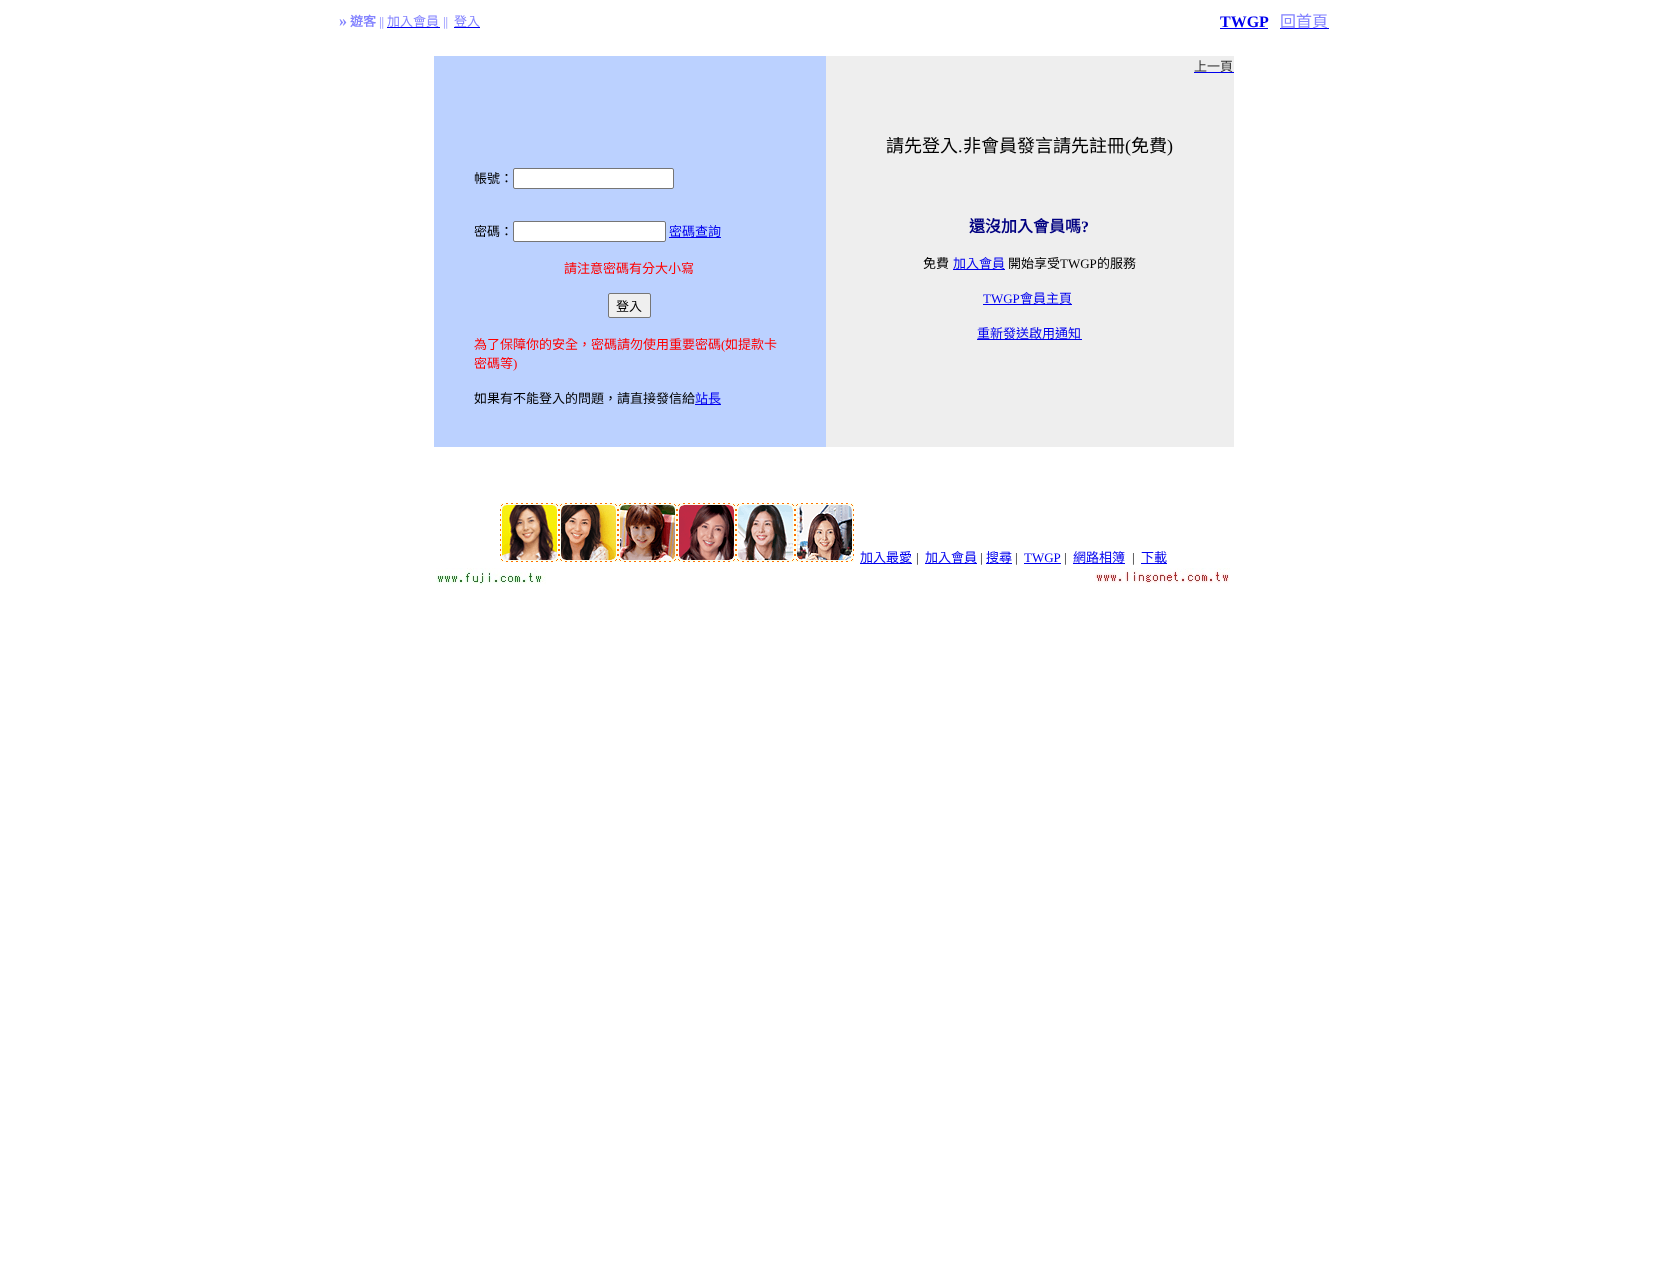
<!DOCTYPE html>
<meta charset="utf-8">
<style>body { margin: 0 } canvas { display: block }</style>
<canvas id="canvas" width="1667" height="1273"></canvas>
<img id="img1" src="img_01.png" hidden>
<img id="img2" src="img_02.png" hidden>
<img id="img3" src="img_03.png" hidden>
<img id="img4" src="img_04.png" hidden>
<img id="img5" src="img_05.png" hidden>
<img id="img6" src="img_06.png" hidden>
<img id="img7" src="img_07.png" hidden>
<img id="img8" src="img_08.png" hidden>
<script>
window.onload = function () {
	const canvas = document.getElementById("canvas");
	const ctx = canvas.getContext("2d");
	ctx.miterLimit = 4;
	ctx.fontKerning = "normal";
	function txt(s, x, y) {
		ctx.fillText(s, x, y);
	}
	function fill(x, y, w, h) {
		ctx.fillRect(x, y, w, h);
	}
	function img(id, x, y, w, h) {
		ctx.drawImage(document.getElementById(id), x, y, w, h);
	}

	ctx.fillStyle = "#FFFFFF";
	fill(0, 0, 1667, 1273);
	ctx.fillStyle = "#0000EE";
	fill(387, 27, 53, 1);
	fill(454, 27, 26, 1);
	fill(1220, 28, 48, 1);
	fill(1280, 28, 49, 1);
	ctx.fillStyle = "#BBD1FF";
	fill(434, 56, 392, 391);
	ctx.fillStyle = "#FFFFFF";
	ctx.beginPath();
	ctx.roundRect(513.5, 168.5, 160, 20, 1.5);
	ctx.fill();
	ctx.strokeStyle = "#767676";
	ctx.stroke();
	ctx.beginPath();
	ctx.roundRect(513.5, 221.5, 152, 20, 1.5);
	ctx.fill();
	ctx.stroke();
	ctx.fillStyle = "#0000EE";
	fill(669, 237, 52, 1);
	ctx.fillStyle = "#EFEFEF";
	ctx.beginPath();
	ctx.roundRect(608.5, 293.5, 42, 24, 1.5);
	ctx.fill();
	ctx.stroke();
	ctx.fillStyle = "#0000EE";
	fill(695, 404, 26, 1);
	ctx.fillStyle = "#EEEEEE";
	fill(826, 56, 408, 391);
	ctx.fillStyle = "#0000EE";
	fill(1194, 72, 40, 1);
	fill(953, 269, 52, 1);
	fill(983, 304, 89, 1);
	fill(977, 339, 105, 1);
	img("img1", 500, 503, 59, 59);
	img("img2", 559, 503, 59, 59);
	img("img3", 618, 503, 59, 59);
	img("img4", 677, 503, 59, 59);
	img("img5", 736, 503, 59, 59);
	img("img6", 795, 503, 59, 59);
	fill(860, 563, 52, 1);
	fill(925, 563, 52, 1);
	fill(986, 563, 26, 1);
	fill(1024, 563, 37, 1);
	fill(1073, 563, 52, 1);
	fill(1141, 563, 26, 1);
	img("img7", 436, 568, 110, 17);
	img("img8", 1094, 568, 136, 16);
	ctx.font = "bold 16px Liberation Serif";
	ctx.fillStyle = "#8484FF";
	txt("»", 339, 26);
	ctx.font = "bold 13px Noto Sans CJK TC";
	txt("遊客", 350, 26);
	ctx.font = "13px Liberation Serif";
	txt("||", 379, 26);
	ctx.font = "13px Noto Sans CJK TC";
	txt("加入會員", 387, 26);
	ctx.font = "13px Liberation Serif";
	txt("||", 443, 26);
	ctx.font = "13px Noto Sans CJK TC";
	txt("登入", 454, 26);
	ctx.font = "bold 16px Liberation Serif";
	ctx.fillStyle = "#0000EE";
	txt("TWGP", 1220, 27);
	ctx.font = "16px Noto Sans CJK TC";
	ctx.fillStyle = "#8484FF";
	txt("回首頁", 1280, 27);
	ctx.font = "13px Noto Sans CJK TC";
	ctx.fillStyle = "#000000";
	txt("帳號：", 474, 183);
	txt("密碼：", 474, 236);
	ctx.fillStyle = "#0000EE";
	txt("密碼查詢", 669, 236);
	ctx.fillStyle = "#FF0000";
	txt("請注意密碼有分大小寫", 564, 273);
	ctx.fillStyle = "#000000";
	txt("登入", 616, 311);
	ctx.fillStyle = "#FF0000";
	txt("為了保障你的安全，密碼請勿使用重要密碼", 474, 349);
	ctx.font = "13px Liberation Serif";
	txt("(", 721, 349);
	ctx.font = "13px Noto Sans CJK TC";
	txt("如提款卡", 725, 349);
	txt("密碼等", 474, 368);
	ctx.font = "13px Liberation Serif";
	txt(")", 513, 368);
	ctx.font = "13px Noto Sans CJK TC";
	ctx.fillStyle = "#000000";
	txt("如果有不能登入的問題，請直接發信給", 474, 403);
	ctx.fillStyle = "#0000EE";
	txt("站長", 695, 403);
	ctx.fillStyle = "#333333";
	txt("上一頁", 1194, 71);
	ctx.font = "18px Noto Sans CJK TC";
	ctx.fillStyle = "#000000";
	txt("請先登入", 886, 152);
	ctx.font = "18px Liberation Serif";
	txt(".", 958, 152);
	ctx.font = "18px Noto Sans CJK TC";
	txt("非會員發言請先註冊", 963, 152);
	ctx.font = "18px Liberation Serif";
	txt("(", 1125, 152);
	ctx.font = "18px Noto Sans CJK TC";
	txt("免費", 1131, 152);
	ctx.font = "18px Liberation Serif";
	txt(")", 1167, 152);
	ctx.font = "bold 16px Noto Sans CJK TC";
	ctx.fillStyle = "#000080";
	txt("還沒加入會員嗎", 969, 232);
	ctx.font = "bold 16px Liberation Serif";
	txt("?", 1081, 232);
	ctx.font = "13px Noto Sans CJK TC";
	ctx.fillStyle = "#000000";
	txt("免費", 923, 268);
	ctx.fillStyle = "#0000EE";
	txt("加入會員", 953, 268);
	ctx.fillStyle = "#000000";
	txt("開始享受", 1008, 268);
	ctx.font = "13px Liberation Serif";
	txt("TWGP", 1060, 268);
	ctx.font = "13px Noto Sans CJK TC";
	txt("的服務", 1097, 268);
	ctx.font = "13px Liberation Serif";
	ctx.fillStyle = "#0000EE";
	txt("TWGP", 983, 303);
	ctx.font = "13px Noto Sans CJK TC";
	txt("會員主頁", 1020, 303);
	txt("重新發送啟用通知", 977, 338);
	txt("加入最愛", 860, 562);
	ctx.font = "13px Liberation Serif";
	ctx.fillStyle = "#000000";
	txt("|", 916, 562);
	ctx.font = "13px Noto Sans CJK TC";
	ctx.fillStyle = "#0000EE";
	txt("加入會員", 925, 562);
	ctx.font = "13px Liberation Serif";
	ctx.fillStyle = "#000000";
	txt("|", 980, 562);
	ctx.font = "13px Noto Sans CJK TC";
	ctx.fillStyle = "#0000EE";
	txt("搜尋", 986, 562);
	ctx.font = "13px Liberation Serif";
	ctx.fillStyle = "#000000";
	txt("|", 1015, 562);
	ctx.fillStyle = "#0000EE";
	txt("TWGP", 1024, 562);
	ctx.fillStyle = "#000000";
	txt("|", 1064, 562);
	ctx.font = "13px Noto Sans CJK TC";
	ctx.fillStyle = "#0000EE";
	txt("網路相簿", 1073, 562);
	ctx.font = "13px Liberation Serif";
	ctx.fillStyle = "#000000";
	txt("|", 1132, 562);
	ctx.font = "13px Noto Sans CJK TC";
	ctx.fillStyle = "#0000EE";
	txt("下載", 1141, 562);
};
</script>
